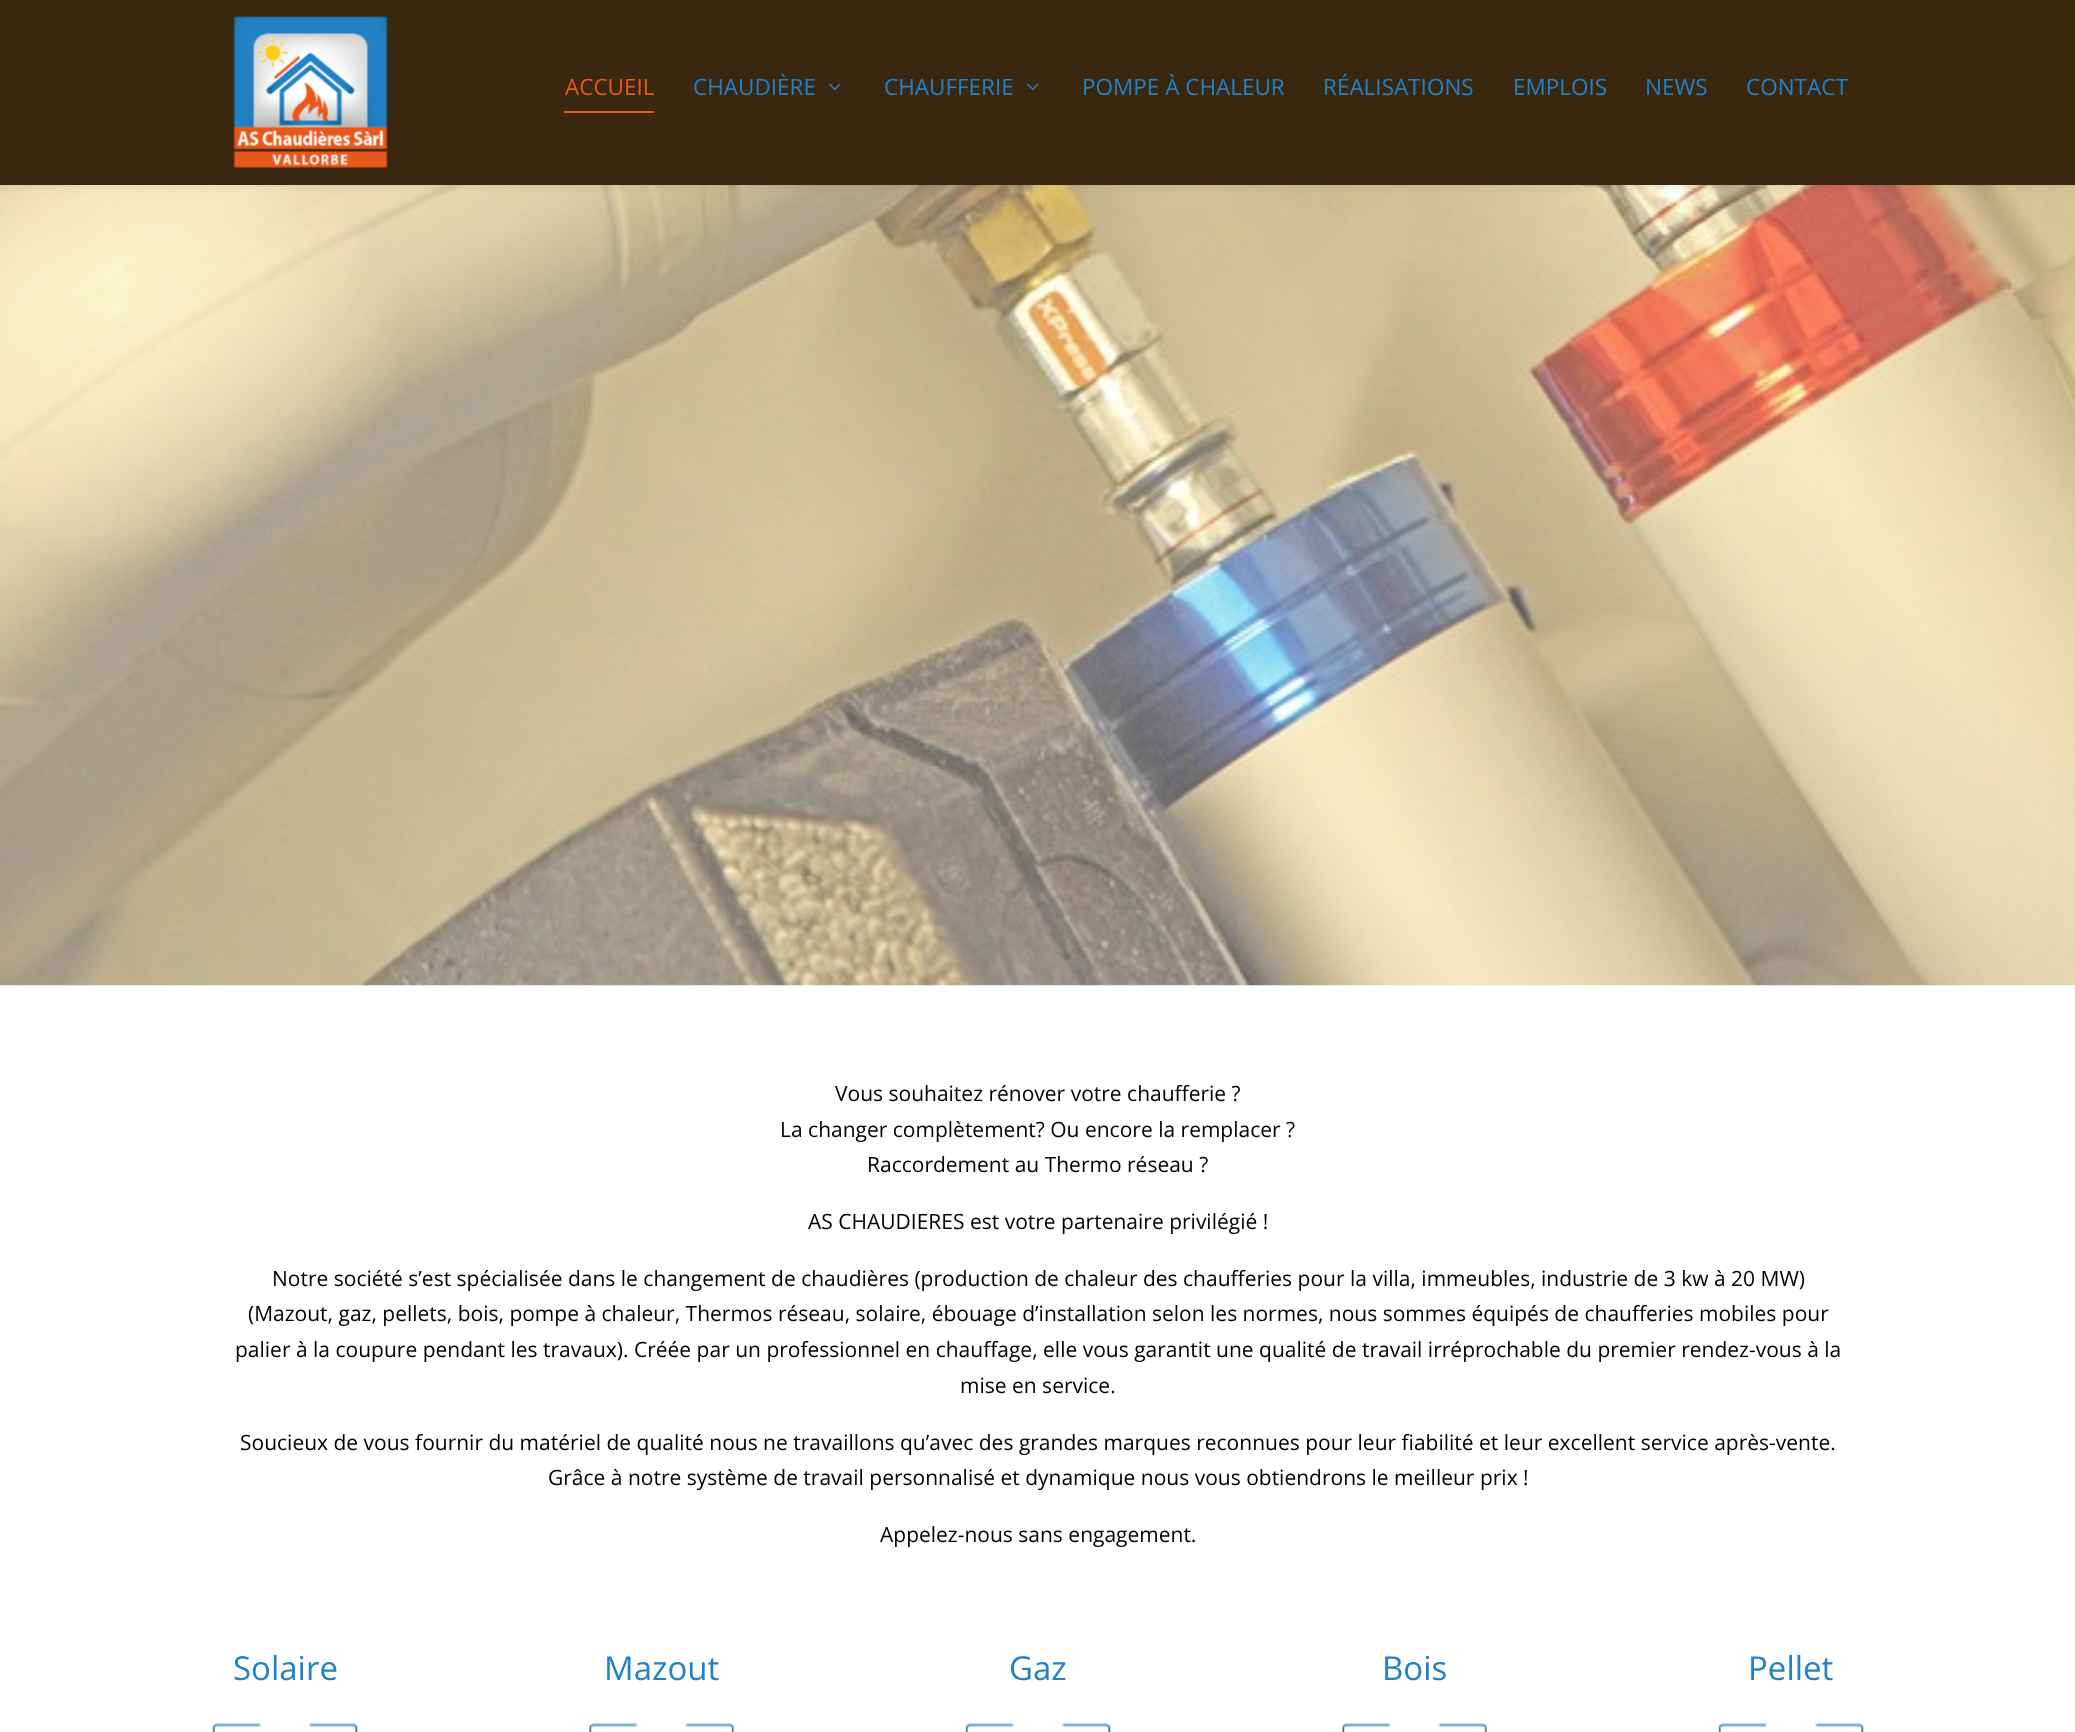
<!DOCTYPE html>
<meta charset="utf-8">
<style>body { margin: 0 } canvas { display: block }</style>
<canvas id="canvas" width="2075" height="1732"></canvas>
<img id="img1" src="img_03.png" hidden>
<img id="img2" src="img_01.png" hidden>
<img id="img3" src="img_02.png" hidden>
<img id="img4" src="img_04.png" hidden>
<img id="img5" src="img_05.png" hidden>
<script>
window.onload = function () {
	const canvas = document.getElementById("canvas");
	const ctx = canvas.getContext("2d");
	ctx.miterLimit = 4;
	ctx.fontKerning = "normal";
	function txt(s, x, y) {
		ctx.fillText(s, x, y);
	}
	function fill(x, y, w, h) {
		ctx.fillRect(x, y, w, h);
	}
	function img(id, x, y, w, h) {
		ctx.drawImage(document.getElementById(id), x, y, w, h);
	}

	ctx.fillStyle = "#FFFFFF";
	fill(0, 0, 2075, 1732);
	img("img1", 0, 185, 2075, 801);
	ctx.fillStyle = "rgba(0, 0, 0, 0.1)";
	ctx.filter = "blur(5px)";
	ctx.beginPath();
	ctx.rect(0, 0, 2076, 185);
	ctx.fill();
	ctx.filter = "none";
	ctx.fillStyle = "#39270F";
	fill(0, 0, 2075, 185);
	img("img2", 233, 16, 155, 153);
	ctx.fillStyle = "#EA571B";
	fill(564, 111, 90, 2);
	img("img3", 829, 83, 12, 7);
	img("img3", 1027, 83, 12, 7);
	img("img4", 212, 1723, 146, 9);
	img("img5", 589, 1723, 145, 9);
	img("img4", 965, 1723, 146, 9);
	img("img5", 1342, 1723, 145, 9);
	img("img4", 1718, 1723, 146, 9);
	ctx.font = "22.5px Open Sans";
	txt("ACCUEIL", 565, 95);
	ctx.fillStyle = "#2182C7";
	txt("CHAUDIÈRE", 693, 95);
	txt("CHAUFFERIE", 884, 95);
	txt("POMPE À CHALEUR", 1082, 95);
	txt("RÉALISATIONS", 1323, 95);
	txt("EMPLOIS", 1513, 95);
	txt("NEWS", 1645, 95);
	txt("CONTACT", 1746, 95);
	ctx.font = "21px Open Sans";
	ctx.fillStyle = "#000000";
	txt("Vous souhaitez rénover votre chaufferie ?", 835, 1101);
	txt("La changer complètement? Ou encore la remplacer ?", 780, 1137);
	txt("Raccordement au Thermo réseau ?", 867, 1172);
	txt("AS CHAUDIERES est votre partenaire privilégié !", 808, 1229);
	txt("Notre société s’est spécialisée dans le changement de chaudières (production de chaleur des chaufferies pour la villa, immeubles, industrie de 3 kw à 20 MW)", 272, 1286);
	txt("(Mazout, gaz, pellets, bois, pompe à chaleur, Thermos réseau, solaire, ébouage d’installation selon les normes, nous sommes équipés de chaufferies mobiles pour", 248, 1321);
	txt("palier à la coupure pendant les travaux). Créée par un professionnel en chauffage, elle vous garantit une qualité de travail irréprochable du premier rendez-vous à la", 235, 1357);
	txt("mise en service.", 960, 1393);
	txt("Soucieux de vous fournir du matériel de qualité nous ne travaillons qu’avec des grandes marques reconnues pour leur fiabilité et leur excellent service après-vente.", 240, 1450);
	txt("Grâce à notre système de travail personnalisé et dynamique nous vous obtiendrons le meilleur prix !", 548, 1485);
	txt("Appelez-nous sans engagement.", 880, 1542);
	ctx.font = "33px Open Sans";
	ctx.fillStyle = "#2182C7";
	txt("Solaire", 233, 1680);
	txt("Mazout", 604, 1680);
	txt("Gaz", 1009, 1680);
	txt("Bois", 1382, 1680);
	txt("Pellet", 1748, 1680);
};
</script>
